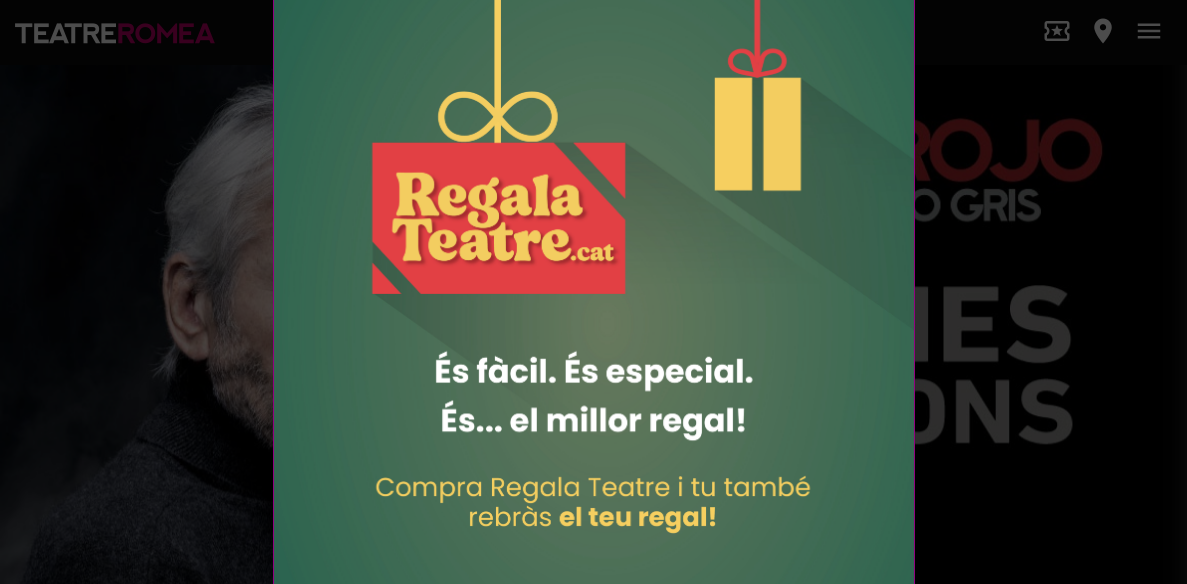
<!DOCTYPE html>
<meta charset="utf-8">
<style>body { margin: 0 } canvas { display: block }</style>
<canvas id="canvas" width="1187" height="584"></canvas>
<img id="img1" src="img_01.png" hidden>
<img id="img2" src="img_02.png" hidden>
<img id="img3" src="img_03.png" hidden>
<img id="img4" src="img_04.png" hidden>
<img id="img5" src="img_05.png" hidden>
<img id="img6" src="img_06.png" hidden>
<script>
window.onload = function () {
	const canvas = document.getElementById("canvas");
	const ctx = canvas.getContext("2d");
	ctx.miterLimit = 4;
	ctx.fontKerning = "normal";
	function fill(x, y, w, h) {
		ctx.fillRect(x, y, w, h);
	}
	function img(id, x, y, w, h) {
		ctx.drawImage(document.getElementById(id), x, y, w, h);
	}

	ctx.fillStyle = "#FFFFFF";
	fill(0, 0, 1187, 584);
	ctx.fillStyle = "#030303";
	fill(0, 0, 1187, 65);
	img("img1", 15, 23, 200, 21);
	img("img2", 1044, 21, 26, 20);
	img("img3", 1094, 18, 18, 26);
	img("img4", 1137, 23, 24, 16);
	img("img5", 0, 65, 1187, 519);
	img("img6", 273, 0, 642, 584);
};
</script>
